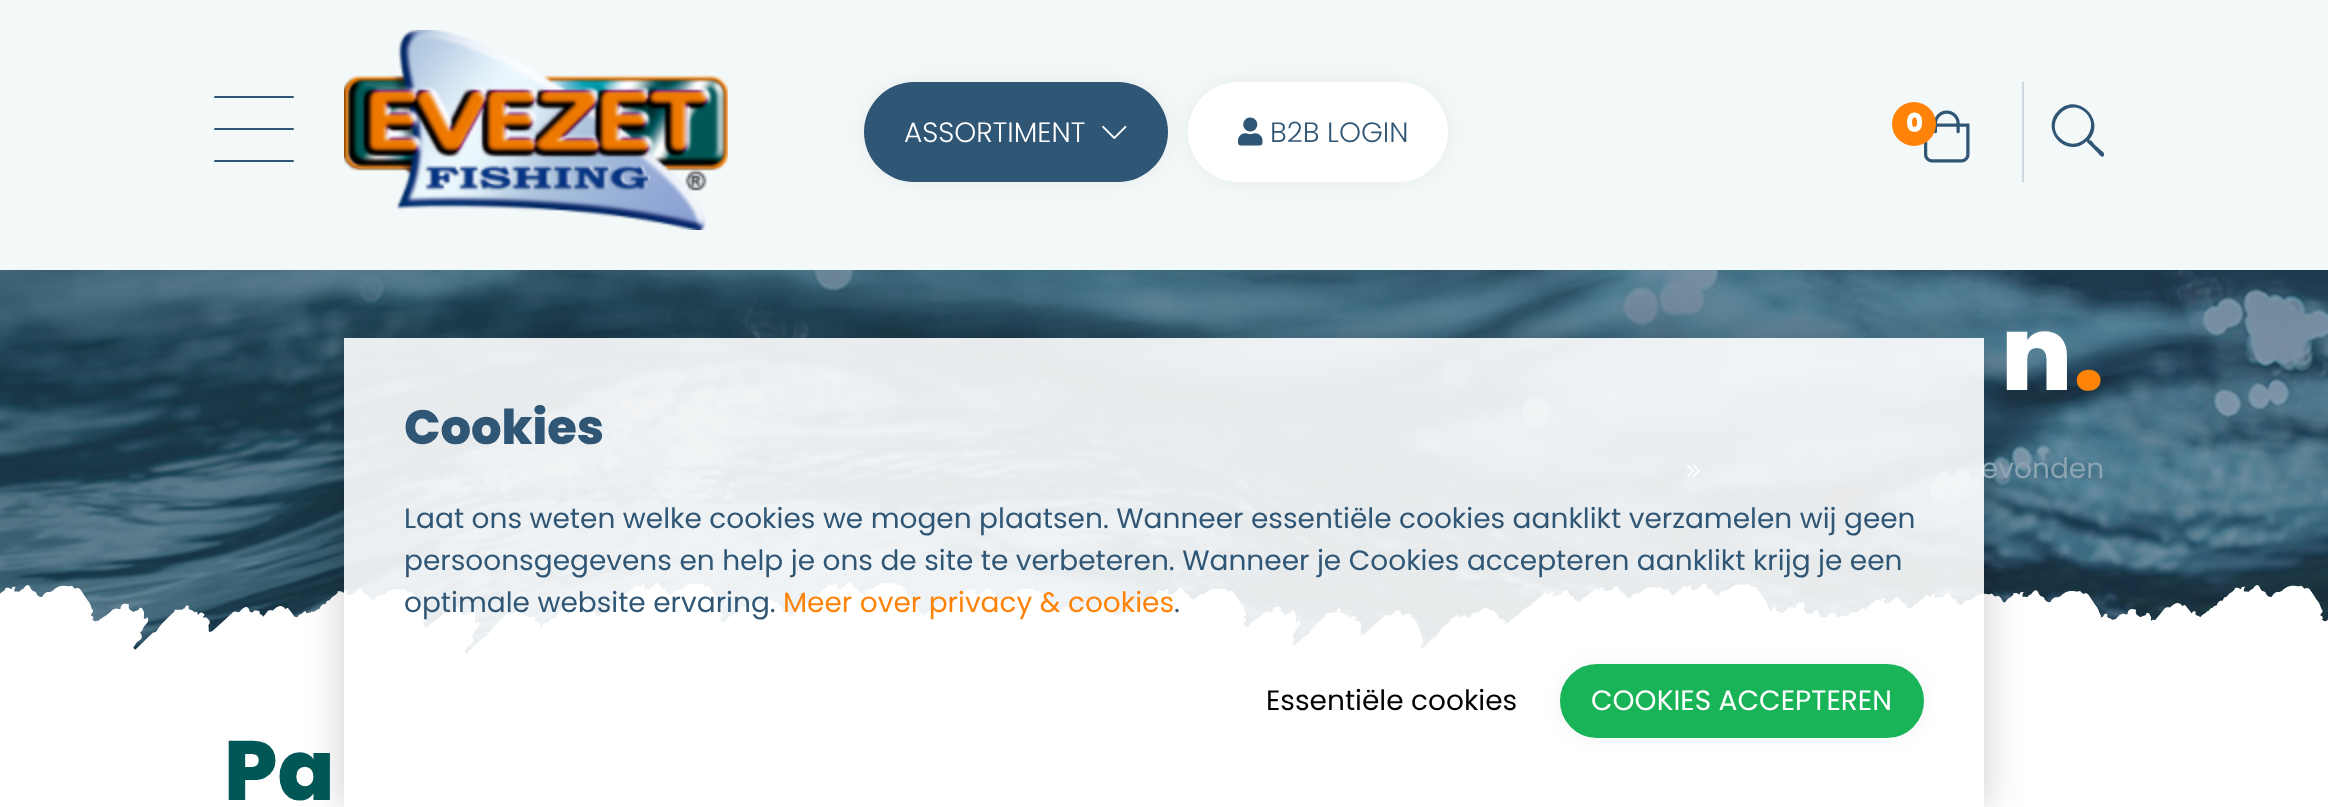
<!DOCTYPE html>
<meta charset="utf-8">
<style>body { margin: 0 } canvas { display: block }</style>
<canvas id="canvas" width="2328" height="807"></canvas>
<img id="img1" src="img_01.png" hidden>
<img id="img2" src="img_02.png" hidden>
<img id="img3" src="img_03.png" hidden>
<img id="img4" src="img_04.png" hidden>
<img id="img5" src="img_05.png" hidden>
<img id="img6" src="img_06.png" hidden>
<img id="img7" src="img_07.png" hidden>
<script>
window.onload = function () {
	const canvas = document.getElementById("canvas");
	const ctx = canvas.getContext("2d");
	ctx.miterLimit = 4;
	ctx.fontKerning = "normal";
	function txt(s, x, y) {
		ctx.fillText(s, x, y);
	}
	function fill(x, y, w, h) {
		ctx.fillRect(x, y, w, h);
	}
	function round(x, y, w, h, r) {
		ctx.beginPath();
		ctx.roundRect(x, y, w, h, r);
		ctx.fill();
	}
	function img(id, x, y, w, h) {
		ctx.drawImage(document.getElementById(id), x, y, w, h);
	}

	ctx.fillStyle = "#FFFFFF";
	fill(0, 0, 2328, 807);
	ctx.fillStyle = "#F3F8F8";
	fill(0, 0, 2328, 270);
	ctx.fillStyle = "#305675";
	round(214, 128, 80, 2, 1);
	round(214, 96, 80, 2, 1);
	round(214, 160, 80, 2, 1);
	img("img1", 344, 30, 384, 200);
	ctx.fillStyle = "rgba(0, 0, 0, 0.05)";
	ctx.filter = "blur(10px)";
	ctx.beginPath();
	ctx.roundRect(864, 82, 304, 100, 50);
	ctx.fill();
	ctx.filter = "none";
	ctx.fillStyle = "#305675";
	round(864, 82, 304, 100, 50);
	img("img2", 1102, 125, 25, 14);
	ctx.fillStyle = "rgba(0, 0, 0, 0.05)";
	ctx.filter = "blur(10px)";
	ctx.beginPath();
	ctx.roundRect(1188, 82, 260, 100, 50);
	ctx.fill();
	ctx.filter = "none";
	ctx.fillStyle = "#FFFFFF";
	round(1188, 82, 260, 100, 50);
	img("img3", 1238, 117, 25, 29);
	img("img4", 1924, 110, 46, 53);
	ctx.fillStyle = "#FF8308";
	ctx.beginPath();
	ctx.arc(1914, 124, 22, 0, Math.PI * 2);
	ctx.fill();
	ctx.fillStyle = "#CCD8DE";
	fill(2022, 82, 2, 100);
	ctx.fillStyle = "#305675";
	ctx.beginPath();
	ctx.moveTo(2104, 153);
	ctx.lineTo(2104, 155);
	ctx.bezierCurveTo(2103, 160, 2098, 153, 2097, 152);
	ctx.lineTo(2090, 145);
	ctx.bezierCurveTo(2088, 143, 2087, 143, 2087, 141);
	ctx.bezierCurveTo(2067, 160, 2039, 130, 2058, 111);
	ctx.bezierCurveTo(2077, 91, 2107, 120, 2089, 140);
	ctx.bezierCurveTo(2092, 140, 2093, 143, 2095, 145);
	ctx.closePath();
	ctx.moveTo(2060, 138);
	ctx.bezierCurveTo(2077, 155, 2102, 130, 2086, 113);
	ctx.bezierCurveTo(2069, 96, 2044, 122, 2060, 138);
	ctx.closePath();
	ctx.fill();
	img("img5", 0, 270, 2328, 384);
	img("img6", 1687, 465, 13, 12);
	img("img7", 0, 582, 2328, 98);
	ctx.save();
	ctx.beginPath();
	ctx.moveTo(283, 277);
	ctx.lineTo(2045, 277);
	ctx.lineTo(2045, 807);
	ctx.lineTo(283, 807);
	ctx.closePath();
	ctx.moveTo(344, 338);
	ctx.lineTo(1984, 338);
	ctx.lineTo(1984, 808);
	ctx.lineTo(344, 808);
	ctx.closePath();
	ctx.clip("evenodd");
	ctx.fillStyle = "rgba(0, 0, 0, 0.2)";
	ctx.filter = "blur(20px)";
	ctx.beginPath();
	ctx.rect(344, 338, 1640, 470);
	ctx.fill();
	ctx.filter = "none";
	ctx.restore();
	ctx.font = "300 28px Poppins";
	ctx.fillStyle = "#FFFFFF";
	txt("ASSORTIMENT", 904, 142);
	ctx.fillStyle = "#305675";
	txt("B2B LOGIN", 1270, 142);
	ctx.font = "800 26px Poppins";
	ctx.fillStyle = "#FFFFFF";
	txt("0", 1906, 132);
	ctx.font = "28px Poppins";
	ctx.fillStyle = "#000000";
	txt("Essentiële cookies", 1266, 710);
	ctx.font = "800 104px Poppins";
	ctx.fillStyle = "#FFFFFF";
	txt("n", 2001, 390);
	ctx.fillStyle = "#FF8308";
	txt(".", 2073, 390);
	ctx.font = "28px Poppins";
	ctx.fillStyle = "#8DA5B2";
	txt("evonden", 1981, 478);
	ctx.fillStyle = "rgba(255, 255, 255, 0.9)";
	fill(344, 338, 1640, 316);
	ctx.fillStyle = "#305675";
	txt(".", 1174, 612);
	ctx.fillStyle = "#FF8308";
	txt("Meer over privacy & cookies", 783, 612);
	ctx.fillStyle = "#305675";
	txt("optimale website ervaring.", 404, 612);
	txt("persoonsgegevens en help je ons de site te verbeteren. Wanneer je Cookies accepteren aanklikt krijg je een", 404, 570);
	txt("Laat ons weten welke cookies we mogen plaatsen. Wanneer essentiële cookies aanklikt verzamelen wij geen", 404, 528);
	ctx.font = "800 48px Poppins";
	txt("Cookies", 404, 444);
	ctx.fillStyle = "rgba(0, 0, 0, 0.05)";
	ctx.filter = "blur(10px)";
	ctx.beginPath();
	ctx.roundRect(1560, 664, 364, 74, 37);
	ctx.fill();
	ctx.filter = "none";
	ctx.fillStyle = "#19B358";
	ctx.beginPath();
	ctx.roundRect(1561, 665, 362, 72, 36);
	ctx.fill();
	ctx.strokeStyle = "#19B358";
	ctx.lineWidth = 2;
	ctx.stroke();
	ctx.font = "28px Poppins";
	ctx.fillStyle = "#FFFFFF";
	txt("COOKIES ACCEPTEREN", 1591, 710);
	ctx.font = "800 84px Poppins";
	ctx.fillStyle = "#015756";
	txt("Pa", 224, 800);
};
</script>
